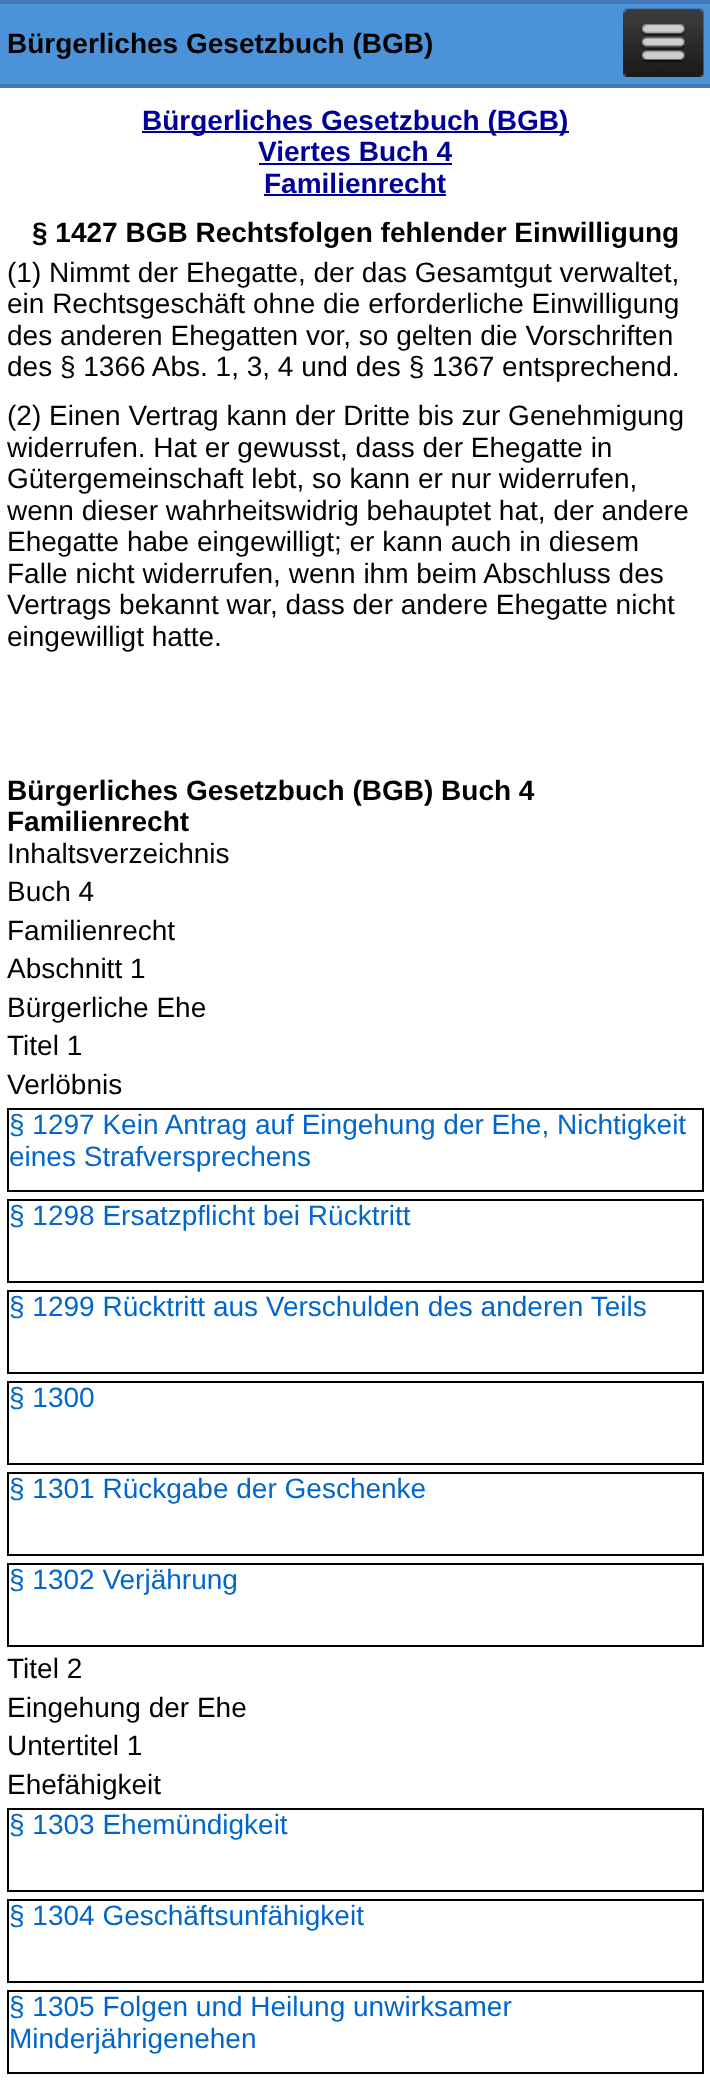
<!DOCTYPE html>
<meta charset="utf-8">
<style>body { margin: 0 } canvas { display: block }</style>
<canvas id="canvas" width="710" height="2096"></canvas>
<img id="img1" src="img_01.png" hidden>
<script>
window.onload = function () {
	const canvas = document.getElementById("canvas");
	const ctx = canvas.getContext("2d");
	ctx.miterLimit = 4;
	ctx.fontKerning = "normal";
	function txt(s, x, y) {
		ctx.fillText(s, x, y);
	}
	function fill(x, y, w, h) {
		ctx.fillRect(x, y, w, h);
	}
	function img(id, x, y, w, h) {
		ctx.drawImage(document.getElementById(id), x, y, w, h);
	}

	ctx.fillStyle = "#FFFFFF";
	fill(0, 0, 710, 2096);
	ctx.fillStyle = "#4B92D9";
	fill(0, 4, 710, 80);
	ctx.fillStyle = "#447ABB";
	fill(0, 0, 710, 4);
	fill(0, 84, 710, 4);
	img("img1", 623, 8, 81, 69);
	ctx.fillStyle = "#000099";
	fill(142, 131, 427, 2);
	fill(259, 163, 193, 2);
	fill(264, 194, 182, 2);
	ctx.strokeStyle = "#000000";
	ctx.lineWidth = 2;
	ctx.strokeRect(8, 1109, 695, 82);
	ctx.strokeRect(8, 1200, 695, 82);
	ctx.strokeRect(8, 1291, 695, 82);
	ctx.strokeRect(8, 1382, 695, 82);
	ctx.strokeRect(8, 1473, 695, 82);
	ctx.strokeRect(8, 1564, 695, 82);
	ctx.strokeRect(8, 1809, 695, 82);
	ctx.strokeRect(8, 1900, 695, 82);
	ctx.strokeRect(8, 1991, 695, 82);
	ctx.font = "bold 28px Liberation Sans";
	ctx.fillStyle = "#000000";
	txt("Bürgerliches Gesetzbuch (BGB)", 7, 53);
	ctx.fillStyle = "#000099";
	txt("Bürgerliches Gesetzbuch (BGB)", 142, 130);
	txt("Viertes Buch 4", 258, 161);
	txt("Familienrecht", 264, 193);
	ctx.fillStyle = "#000000";
	txt("§ 1427 BGB Rechtsfolgen fehlender Einwilligung", 32, 242);
	ctx.font = "28px Liberation Sans";
	txt("(1) Nimmt der Ehegatte, der das Gesamtgut verwaltet,", 7, 282);
	txt("ein Rechtsgeschäft ohne die erforderliche Einwilligung", 7, 313);
	txt("des anderen Ehegatten vor, so gelten die Vorschriften", 7, 345);
	txt("des § 1366 Abs. 1, 3, 4 und des § 1367 entsprechend.", 7, 376);
	txt("(2) Einen Vertrag kann der Dritte bis zur Genehmigung", 7, 425);
	txt("widerrufen. Hat er gewusst, dass der Ehegatte in", 7, 457);
	txt("Gütergemeinschaft lebt, so kann er nur widerrufen,", 7, 488);
	txt("wenn dieser wahrheitswidrig behauptet hat, der andere", 7, 520);
	txt("Ehegatte habe eingewilligt; er kann auch in diesem", 7, 551);
	txt("Falle nicht widerrufen, wenn ihm beim Abschluss des", 7, 583);
	txt("Vertrags bekannt war, dass der andere Ehegatte nicht", 7, 614);
	txt("eingewilligt hatte.", 7, 646);
	ctx.font = "bold 28px Liberation Sans";
	txt("Bürgerliches Gesetzbuch (BGB) Buch 4", 7, 800);
	txt("Familienrecht", 7, 831);
	ctx.font = "28px Liberation Sans";
	txt("Inhaltsverzeichnis", 7, 863);
	txt("Buch 4", 7, 901);
	txt("Familienrecht", 7, 940);
	txt("Abschnitt 1", 7, 978);
	txt("Bürgerliche Ehe", 7, 1017);
	txt("Titel 1", 7, 1055);
	txt("Verlöbnis", 7, 1094);
	ctx.fillStyle = "#0066CC";
	txt("§ 1297 Kein Antrag auf Eingehung der Ehe, Nichtigkeit", 9, 1134);
	txt("eines Strafversprechens", 9, 1166);
	txt("§ 1298 Ersatzpflicht bei Rücktritt", 9, 1225);
	txt("§ 1299 Rücktritt aus Verschulden des anderen Teils", 9, 1316);
	txt("§ 1300", 9, 1407);
	txt("§ 1301 Rückgabe der Geschenke", 9, 1498);
	txt("§ 1302 Verjährung", 9, 1589);
	ctx.fillStyle = "#000000";
	txt("Titel 2", 7, 1678);
	txt("Eingehung der Ehe", 7, 1717);
	txt("Untertitel 1", 7, 1755);
	txt("Ehefähigkeit", 7, 1794);
	ctx.fillStyle = "#0066CC";
	txt("§ 1303 Ehemündigkeit", 9, 1834);
	txt("§ 1304 Geschäftsunfähigkeit", 9, 1925);
	txt("§ 1305 Folgen und Heilung unwirksamer", 9, 2016);
	txt("Minderjährigenehen", 9, 2048);
};
</script>
